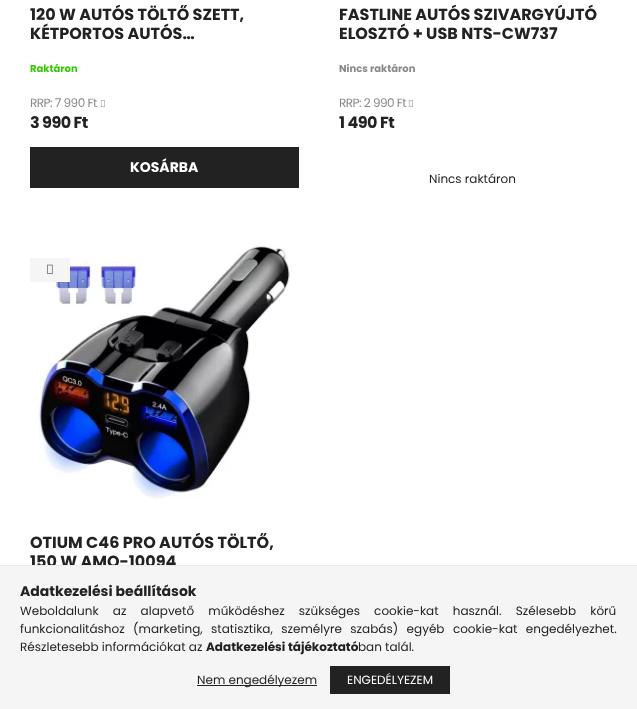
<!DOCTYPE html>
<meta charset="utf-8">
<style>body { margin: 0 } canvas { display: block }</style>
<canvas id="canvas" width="637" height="709"></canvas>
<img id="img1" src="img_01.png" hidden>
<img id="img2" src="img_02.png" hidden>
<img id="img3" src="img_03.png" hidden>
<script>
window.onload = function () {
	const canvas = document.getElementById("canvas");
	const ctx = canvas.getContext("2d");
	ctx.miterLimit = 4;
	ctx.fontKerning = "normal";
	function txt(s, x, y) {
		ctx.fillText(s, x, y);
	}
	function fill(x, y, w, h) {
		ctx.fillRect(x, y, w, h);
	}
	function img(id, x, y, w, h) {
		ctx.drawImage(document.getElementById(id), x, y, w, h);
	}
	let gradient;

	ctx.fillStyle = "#FFFFFF";
	fill(0, 0, 637, 709);
	img("img1", 100, 100, 5, 7);
	gradient = ctx.createLinearGradient(-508, 168, 299, 167);
	gradient.addColorStop(0, "#555555");
	gradient.addColorStop(0.33, "#111111");
	gradient.addColorStop(0.67, "#222222");
	gradient.addColorStop(1, "#222222");
	ctx.fillStyle = gradient;
	fill(30, 147, 269, 41);
	img("img1", 408, 100, 5, 7);
	img("img2", 38, 246, 254, 253);
	ctx.fillStyle = "#F5F5F5";
	fill(30, 258, 40, 24);
	img("img3", 47, 264, 6, 10);
	ctx.save();
	ctx.beginPath();
	ctx.rect(30, 5, 269, 38);
	ctx.clip();
	ctx.font = "bold 16px Poppins";
	ctx.fillStyle = "#222222";
	txt("120 W AUTÓS TÖLTŐ SZETT,", 30, 20);
	ctx.restore();
	ctx.font = "bold 16px Poppins";
	ctx.fillStyle = "#222222";
	txt("KÉTPORTOS AUTÓS…", 30, 39);
	ctx.font = "bold 10px Poppins";
	ctx.fillStyle = "#34C800";
	txt("Raktáron", 30, 72);
	ctx.letterSpacing = "-0.5px";
	ctx.font = "12px Poppins";
	ctx.fillStyle = "#888888";
	txt("RRP: 7 990 Ft", 30, 107);
	ctx.font = "bold 16px Poppins";
	ctx.fillStyle = "#222222";
	txt("3 990 Ft", 30, 128);
	ctx.letterSpacing = "0px";
	ctx.font = "bold 14px Poppins";
	ctx.fillStyle = "#FFFFFF";
	txt("KOSÁRBA", 130, 172);
	ctx.save();
	ctx.beginPath();
	ctx.rect(339, 5, 268, 38);
	ctx.clip();
	ctx.font = "bold 16px Poppins";
	ctx.fillStyle = "#222222";
	txt("FASTLINE AUTÓS SZIVARGYÚJTÓ", 339, 20);
	ctx.restore();
	ctx.font = "bold 16px Poppins";
	ctx.fillStyle = "#222222";
	txt("ELOSZTÓ + USB NTS-CW737", 339, 39);
	ctx.font = "bold 10px Poppins";
	ctx.fillStyle = "#888888";
	txt("Nincs raktáron", 339, 72);
	ctx.letterSpacing = "-0.5px";
	ctx.font = "12px Poppins";
	txt("RRP: 2 990 Ft", 339, 107);
	ctx.font = "bold 16px Poppins";
	ctx.fillStyle = "#222222";
	txt("1 490 Ft", 339, 128);
	ctx.letterSpacing = "0px";
	ctx.font = "12px Poppins";
	txt("Nincs raktáron", 429, 183);
	ctx.save();
	ctx.beginPath();
	ctx.rect(30, 533, 269, 38);
	ctx.clip();
	ctx.font = "bold 16px Poppins";
	txt("OTIUM C46 PRO AUTÓS TÖLTŐ,", 30, 548);
	ctx.restore();
	ctx.font = "bold 16px Poppins";
	txt("150 W AMO-10094", 30, 567);
	ctx.fillStyle = "#F5F5F5";
	fill(0, 566, 637, 143);
	ctx.fillStyle = "#EAEAEA";
	fill(0, 565, 637, 1);
	ctx.font = "bold 14px Poppins";
	ctx.fillStyle = "#222222";
	txt("Adatkezelési beállítások", 20, 596);
	ctx.wordSpacing = "11px";
	ctx.font = "12px Poppins";
	txt("Weboldalunk az alapvető működéshez szükséges cookie-kat használ. Szélesebb körű", 20, 615);
	ctx.wordSpacing = "5.25px";
	txt("funkcionalitáshoz (marketing, statisztika, személyre szabás) egyéb cookie-kat engedélyezhet.", 20, 633);
	ctx.wordSpacing = "0px";
	txt("Részletesebb információkat az", 20, 651);
	ctx.font = "bold 12px Poppins";
	txt("Adatkezelési tájékoztató", 206, 651);
	ctx.font = "12px Poppins";
	txt("ban talál.", 358, 651);
	fill(197, 685, 120, 1);
	txt("Nem engedélyezem", 197, 684);
	gradient = ctx.createLinearGradient(90, 680, 450, 680);
	gradient.addColorStop(0, "#555555");
	gradient.addColorStop(0.33, "#111111");
	gradient.addColorStop(0.67, "#222222");
	gradient.addColorStop(1, "#222222");
	ctx.fillStyle = gradient;
	fill(330, 666, 120, 28);
	ctx.fillStyle = "#FFFFFF";
	txt("ENGEDÉLYEZEM", 347, 684);
};
</script>
